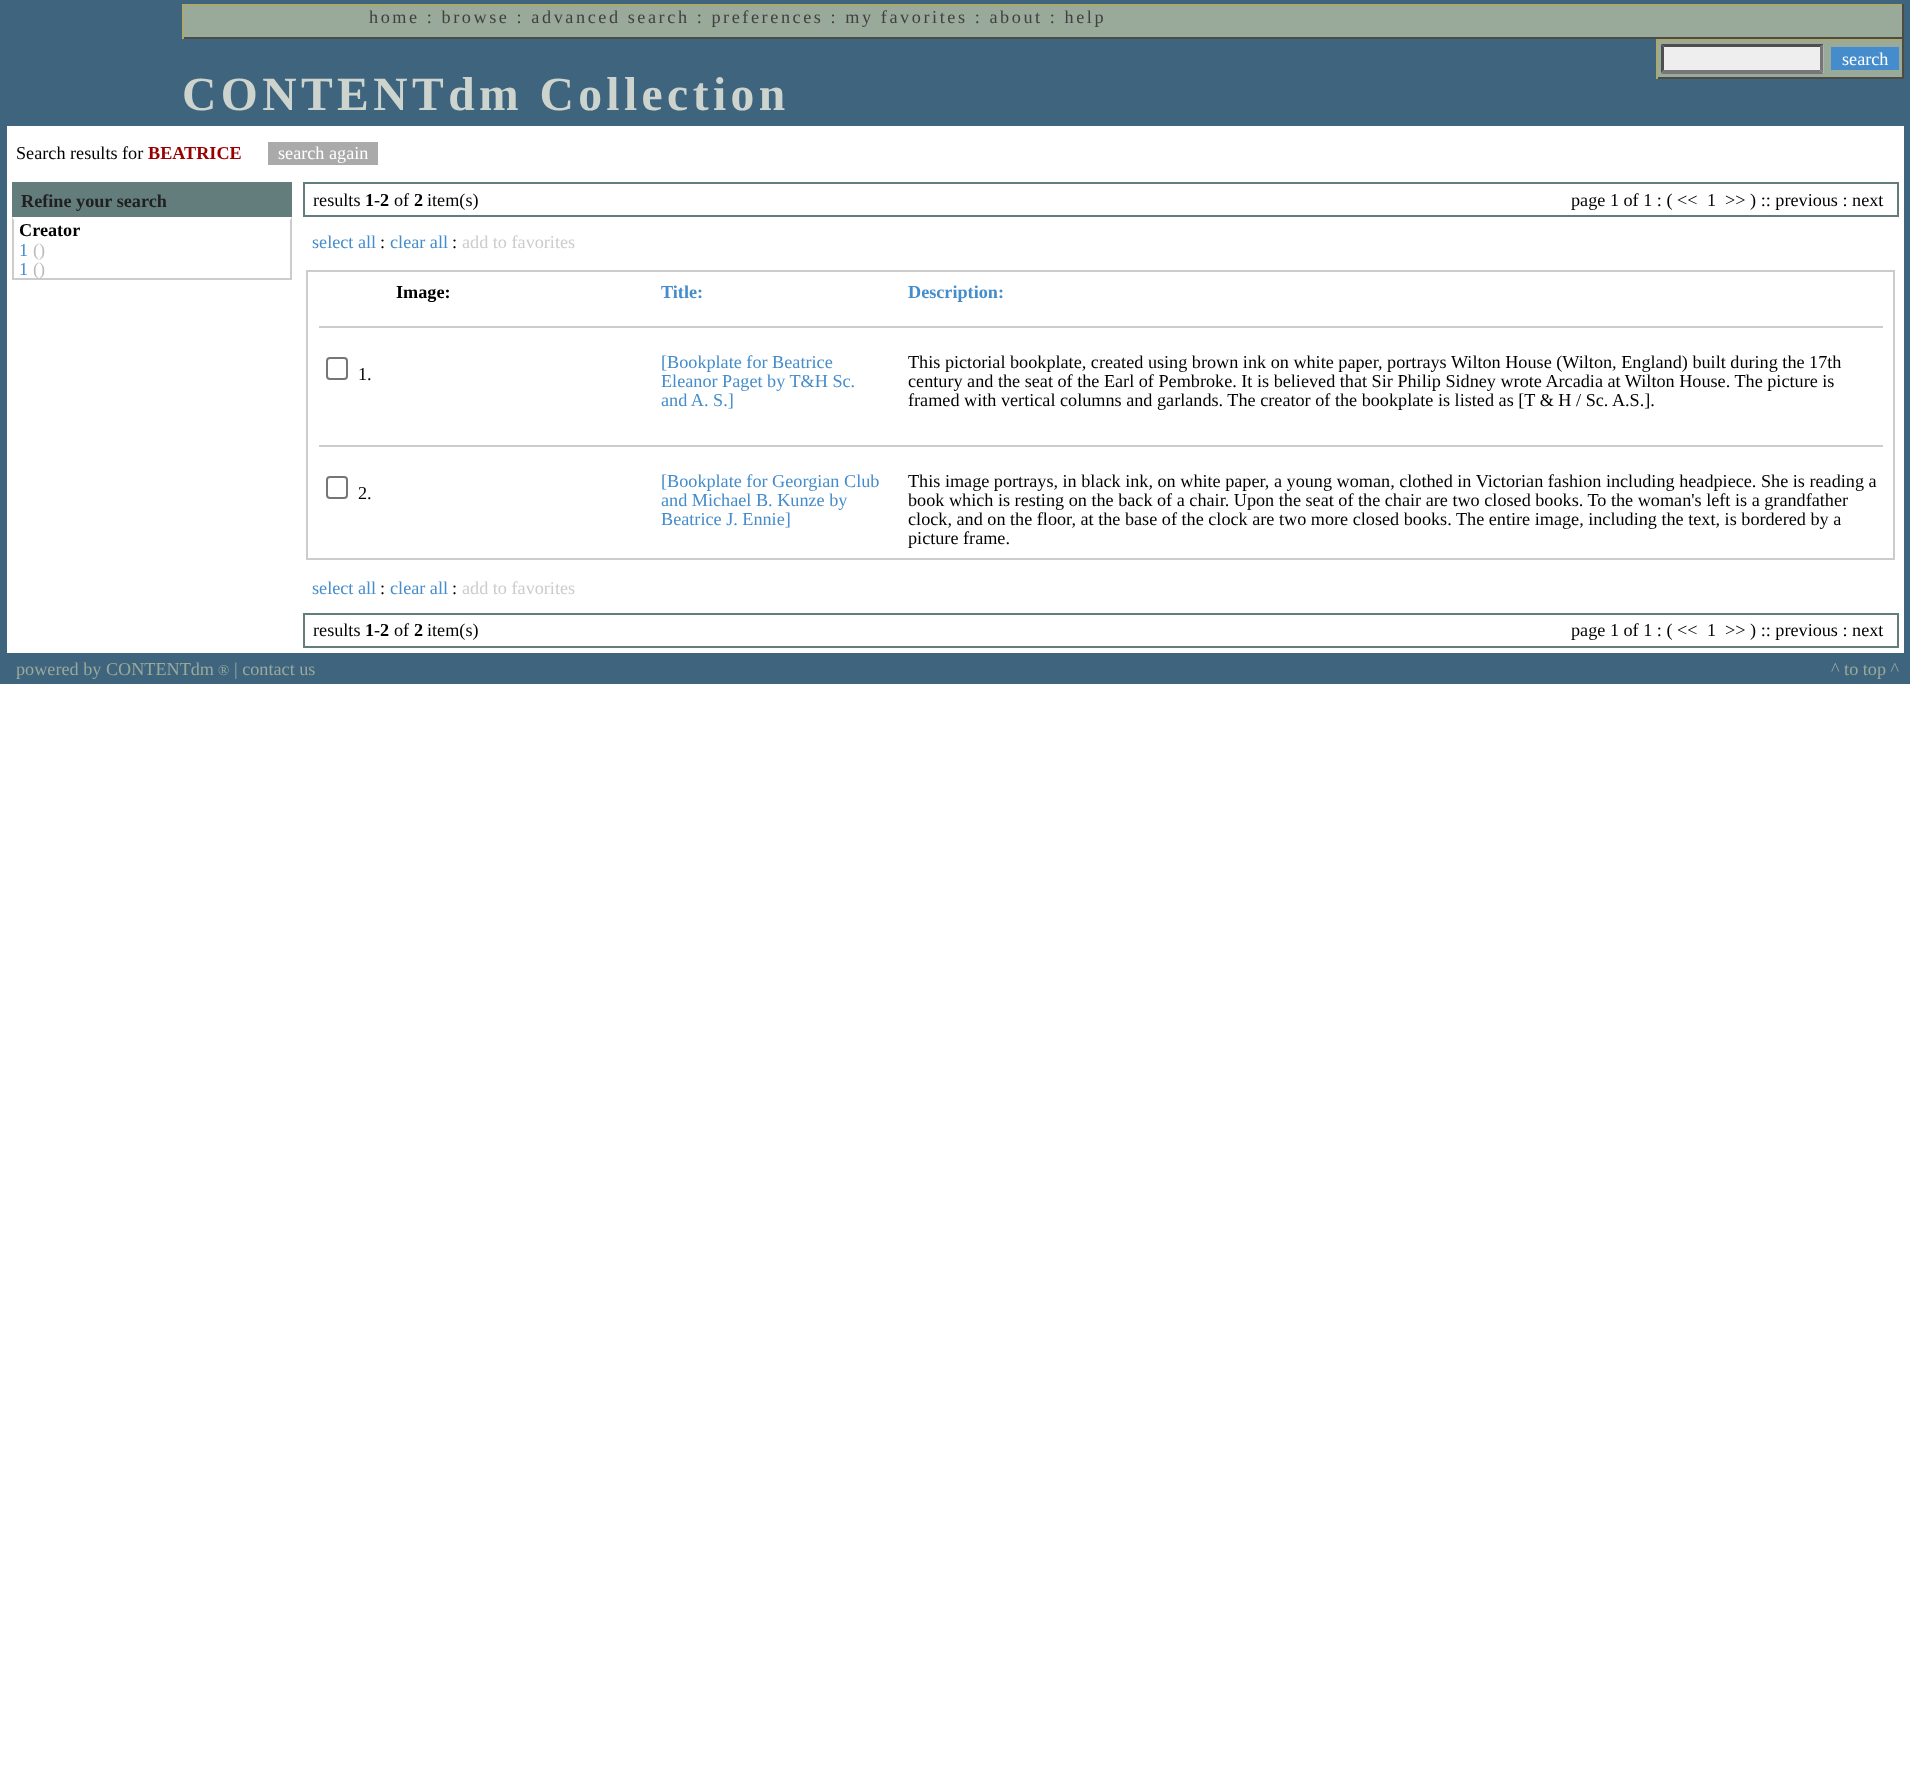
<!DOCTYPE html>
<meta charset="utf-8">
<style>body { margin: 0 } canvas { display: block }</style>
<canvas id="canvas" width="1910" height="1789"></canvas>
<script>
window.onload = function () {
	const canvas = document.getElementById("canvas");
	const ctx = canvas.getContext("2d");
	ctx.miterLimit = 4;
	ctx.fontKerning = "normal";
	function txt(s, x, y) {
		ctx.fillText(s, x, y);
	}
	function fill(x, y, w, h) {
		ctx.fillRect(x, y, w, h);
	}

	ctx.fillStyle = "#FFFFFF";
	fill(0, 0, 1910, 1789);
	ctx.fillStyle = "#3E647E";
	fill(0, 0, 7, 684);
	fill(7, 0, 1897, 126);
	ctx.fillStyle = "#99A99A";
	fill(184, 6, 1718, 31);
	ctx.fillStyle = "#ADA86B";
	fill(182, 4, 1722, 2);
	ctx.fillStyle = "#4C4C45";
	fill(182, 37, 1699, 2);
	ctx.fillStyle = "#ADA86B";
	fill(182, 4, 2, 35);
	ctx.fillStyle = "#4C4C45";
	fill(1902, 4, 2, 35);
	fill(1881, 37, 23, 2);
	ctx.fillStyle = "#99A99A";
	fill(1658, 41, 244, 36);
	ctx.fillStyle = "#ADA86B";
	fill(1656, 39, 248, 2);
	ctx.fillStyle = "#4C4C45";
	fill(1656, 77, 171, 2);
	ctx.fillStyle = "#ADA86B";
	fill(1656, 39, 2, 40);
	ctx.fillStyle = "#EEEEEE";
	fill(1661, 44, 163, 30);
	ctx.fillStyle = "#4F4F4F";
	ctx.beginPath();
	ctx.moveTo(1661, 44);
	ctx.lineTo(1824, 44);
	ctx.lineTo(1820, 47);
	ctx.lineTo(1664, 47);
	ctx.closePath();
	ctx.fill();
	ctx.fillStyle = "#767676";
	ctx.beginPath();
	ctx.moveTo(1823.5, 44);
	ctx.lineTo(1823.5, 73.5);
	ctx.lineTo(1820, 70);
	ctx.lineTo(1820, 47);
	ctx.closePath();
	ctx.fill();
	ctx.beginPath();
	ctx.moveTo(1824, 74);
	ctx.lineTo(1661, 74);
	ctx.lineTo(1664, 70);
	ctx.lineTo(1820, 70);
	ctx.closePath();
	ctx.fill();
	ctx.fillStyle = "#4F4F4F";
	ctx.beginPath();
	ctx.moveTo(1661, 73.5);
	ctx.lineTo(1661, 44);
	ctx.lineTo(1664, 47);
	ctx.lineTo(1664, 70);
	ctx.closePath();
	ctx.fill();
	ctx.fillStyle = "#4C4C45";
	fill(1902, 39, 2, 40);
	fill(1827, 77, 77, 2);
	ctx.fillStyle = "#448CCB";
	fill(1831, 47, 68, 23);
	ctx.fillStyle = "#3E647E";
	fill(1904, 0, 6, 684);
	ctx.fillStyle = "#AAAAAA";
	fill(268, 142, 110, 23);
	ctx.fillStyle = "#627D7C";
	fill(12, 182, 280, 35);
	ctx.fillStyle = "#CCCCCC";
	ctx.beginPath();
	ctx.moveTo(292, 217);
	ctx.lineTo(292, 280);
	ctx.lineTo(290, 278);
	ctx.lineTo(290, 220);
	ctx.closePath();
	ctx.fill();
	fill(12, 278, 280, 2);
	ctx.beginPath();
	ctx.moveTo(12, 280);
	ctx.lineTo(12, 217);
	ctx.lineTo(14, 220);
	ctx.lineTo(14, 278);
	ctx.closePath();
	ctx.fill();
	ctx.fillStyle = "#627D7C";
	fill(303, 182, 1596, 2);
	fill(303, 215, 1580, 2);
	fill(303, 182, 2, 35);
	fill(1897, 182, 2, 35);
	fill(1883, 215, 16, 2);
	ctx.strokeStyle = "#CCCCCC";
	ctx.lineWidth = 2;
	ctx.strokeRect(307, 271, 1587, 288);
	ctx.fillStyle = "#CCCCCC";
	fill(319, 326, 1564, 2);
	ctx.beginPath();
	ctx.roundRect(327, 358, 20, 21, 3);
	ctx.strokeStyle = "#767676";
	ctx.stroke();
	fill(319, 445, 1564, 2);
	ctx.beginPath();
	ctx.roundRect(327, 477, 20, 21, 3);
	ctx.stroke();
	ctx.fillStyle = "#627D7C";
	fill(303, 613, 1596, 2);
	fill(303, 646, 1580, 2);
	fill(303, 613, 2, 35);
	fill(1897, 613, 2, 35);
	fill(1883, 646, 16, 2);
	ctx.fillStyle = "#3E647E";
	fill(7, 653, 1897, 31);
	ctx.letterSpacing = "2.57px";
	ctx.font = "18.2px Liberation Serif";
	ctx.fillStyle = "#404040";
	txt("home : browse : advanced search : preferences : my favorites : about : help", 369, 23);
	ctx.letterSpacing = "0px";
	ctx.fillStyle = "#FFFFFF";
	txt("search", 1842, 65);
	ctx.letterSpacing = "4.4px";
	ctx.font = "bold 47.6px Liberation Serif";
	ctx.fillStyle = "#CDD3CD";
	txt("CONTENTdm Collection", 182, 110);
	ctx.letterSpacing = "0px";
	ctx.font = "18.2px Liberation Serif";
	ctx.fillStyle = "#000000";
	txt("Search results for", 16, 159);
	ctx.font = "bold 18.2px Liberation Serif";
	ctx.fillStyle = "#990000";
	txt("BEATRICE", 148, 159);
	ctx.font = "18.2px Liberation Serif";
	ctx.fillStyle = "#FFFFFF";
	txt("search again", 278, 159);
	ctx.font = "bold 18.2px Liberation Serif";
	ctx.fillStyle = "#202020";
	txt("Refine your search", 21, 207);
	ctx.fillStyle = "#000000";
	txt("Creator", 19, 236);
	ctx.font = "18.2px Liberation Serif";
	ctx.fillStyle = "#448CCB";
	txt("1", 19, 256);
	ctx.fillStyle = "#BBBBBB";
	txt("()", 33, 256);
	ctx.fillStyle = "#448CCB";
	txt("1", 19, 275);
	ctx.fillStyle = "#BBBBBB";
	txt("()", 33, 275);
	ctx.fillStyle = "#000000";
	txt("results", 313, 206);
	ctx.font = "bold 18.2px Liberation Serif";
	txt("1", 365, 206);
	ctx.font = "18.2px Liberation Serif";
	txt("-", 374, 206);
	ctx.font = "bold 18.2px Liberation Serif";
	txt("2", 380, 206);
	ctx.font = "18.2px Liberation Serif";
	txt("of", 394, 206);
	ctx.font = "bold 18.2px Liberation Serif";
	txt("2", 414, 206);
	ctx.font = "18.2px Liberation Serif";
	txt("item(s)", 427, 206);
	txt("page 1 of 1 : ( <<", 1571, 206);
	txt("1", 1707, 206);
	txt(">> ) :: previous : next", 1725, 206);
	ctx.fillStyle = "#448CCB";
	txt("select all", 312, 248);
	ctx.fillStyle = "#000000";
	txt(":", 380, 248);
	ctx.fillStyle = "#448CCB";
	txt("clear all", 390, 248);
	ctx.fillStyle = "#000000";
	txt(":", 452, 248);
	ctx.fillStyle = "#CCCCCC";
	txt("add to favorites", 462, 248);
	ctx.font = "bold 18.2px Liberation Serif";
	ctx.fillStyle = "#000000";
	txt("Image:", 396, 298);
	ctx.fillStyle = "#448CCB";
	txt("Title:", 661, 298);
	txt("Description:", 908, 298);
	ctx.font = "18.2px Liberation Serif";
	ctx.fillStyle = "#000000";
	txt("1.", 358, 380);
	ctx.fillStyle = "#448CCB";
	txt("[Bookplate for Beatrice", 661, 368);
	txt("Eleanor Paget by T&H Sc.", 661, 387);
	txt("and A. S.]", 661, 406);
	ctx.fillStyle = "#000000";
	txt("This pictorial bookplate, created using brown ink on white paper, portrays Wilton House (Wilton, England) built during the 17th", 908, 368);
	txt("century and the seat of the Earl of Pembroke. It is believed that Sir Philip Sidney wrote Arcadia at Wilton House. The picture is", 908, 387);
	txt("framed with vertical columns and garlands. The creator of the bookplate is listed as [T & H / Sc. A.S.].", 908, 406);
	txt("2.", 358, 499);
	ctx.fillStyle = "#448CCB";
	txt("[Bookplate for Georgian Club", 661, 487);
	txt("and Michael B. Kunze by", 661, 506);
	txt("Beatrice J. Ennie]", 661, 525);
	ctx.fillStyle = "#000000";
	txt("This image portrays, in black ink, on white paper, a young woman, clothed in Victorian fashion including headpiece. She is reading a", 908, 487);
	txt("book which is resting on the back of a chair. Upon the seat of the chair are two closed books. To the woman's left is a grandfather", 908, 506);
	txt("clock, and on the floor, at the base of the clock are two more closed books. The entire image, including the text, is bordered by a", 908, 525);
	txt("picture frame.", 908, 544);
	ctx.fillStyle = "#448CCB";
	txt("select all", 312, 594);
	ctx.fillStyle = "#000000";
	txt(":", 380, 594);
	ctx.fillStyle = "#448CCB";
	txt("clear all", 390, 594);
	ctx.fillStyle = "#000000";
	txt(":", 452, 594);
	ctx.fillStyle = "#CCCCCC";
	txt("add to favorites", 462, 594);
	ctx.fillStyle = "#000000";
	txt("results", 313, 636);
	ctx.font = "bold 18.2px Liberation Serif";
	txt("1", 365, 636);
	ctx.font = "18.2px Liberation Serif";
	txt("-", 374, 636);
	ctx.font = "bold 18.2px Liberation Serif";
	txt("2", 380, 636);
	ctx.font = "18.2px Liberation Serif";
	txt("of", 394, 636);
	ctx.font = "bold 18.2px Liberation Serif";
	txt("2", 414, 636);
	ctx.font = "18.2px Liberation Serif";
	txt("item(s)", 427, 636);
	txt("page 1 of 1 : ( <<", 1571, 636);
	txt("1", 1707, 636);
	txt(">> ) :: previous : next", 1725, 636);
	ctx.fillStyle = "#99A99A";
	txt("powered by CONTENTdm", 16, 675);
	ctx.font = "15px Liberation Serif";
	txt("®", 218, 675);
	ctx.font = "18.2px Liberation Serif";
	txt("| contact us", 234, 675);
	txt("^ to top ^", 1831, 675);
};
</script>
